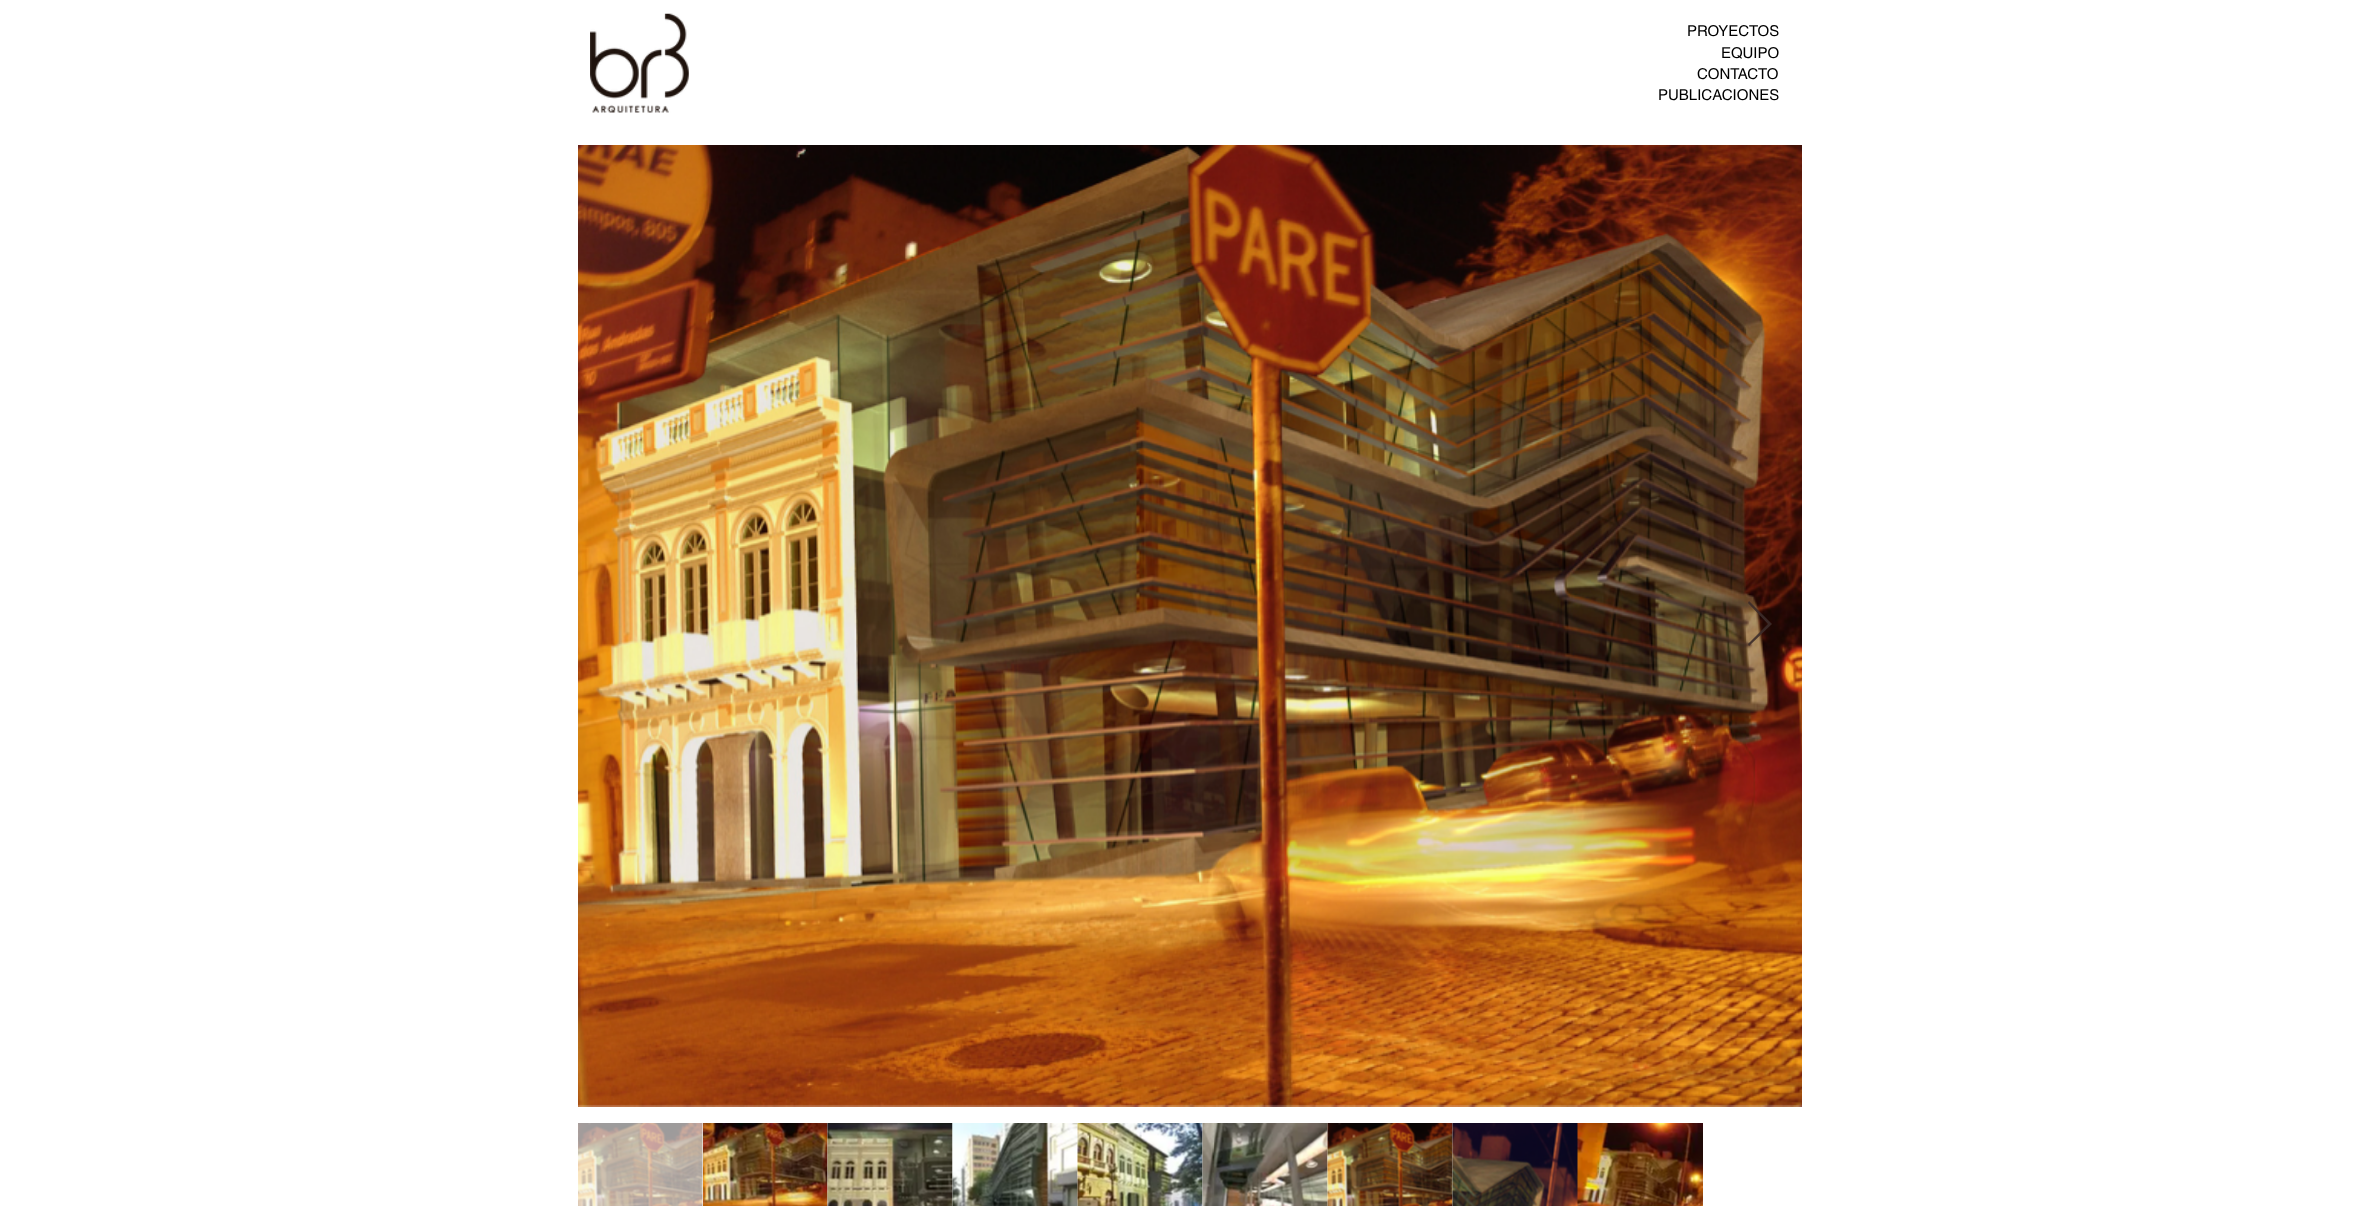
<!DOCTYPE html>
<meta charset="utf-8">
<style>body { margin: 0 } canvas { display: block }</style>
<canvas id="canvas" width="2380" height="1206"></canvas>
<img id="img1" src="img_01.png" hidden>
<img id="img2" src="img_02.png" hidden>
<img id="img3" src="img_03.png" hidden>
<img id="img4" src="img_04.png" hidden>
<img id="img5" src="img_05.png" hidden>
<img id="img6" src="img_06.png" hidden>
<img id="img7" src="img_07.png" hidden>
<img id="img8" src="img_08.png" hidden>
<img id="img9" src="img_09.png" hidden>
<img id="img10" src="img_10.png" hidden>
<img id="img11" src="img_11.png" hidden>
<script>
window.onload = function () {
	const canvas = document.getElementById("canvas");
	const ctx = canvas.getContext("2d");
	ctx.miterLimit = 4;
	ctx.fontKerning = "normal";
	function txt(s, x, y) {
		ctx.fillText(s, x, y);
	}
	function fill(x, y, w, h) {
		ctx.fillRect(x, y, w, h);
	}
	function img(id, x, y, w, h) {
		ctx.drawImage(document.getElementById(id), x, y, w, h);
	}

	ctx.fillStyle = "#FFFFFF";
	fill(0, 0, 2380, 1206);
	img("img1", 590, 13, 99, 100);
	img("img2", 578, 145, 1224, 962);
	ctx.fillStyle = "rgba(61, 44, 42, 0.9)";
	ctx.beginPath();
	ctx.moveTo(1748, 603);
	ctx.lineTo(1749, 601);
	ctx.lineTo(1772, 624);
	ctx.lineTo(1749, 646);
	ctx.lineTo(1748, 644);
	ctx.lineTo(1768, 624);
	ctx.closePath();
	ctx.fill();
	img("img3", 578, 1123, 125, 83);
	img("img4", 703, 1123, 125, 83);
	img("img5", 827, 1123, 126, 83);
	img("img6", 952, 1123, 126, 83);
	img("img7", 1077, 1123, 126, 83);
	img("img8", 1202, 1123, 126, 83);
	img("img9", 1327, 1123, 126, 83);
	img("img10", 1452, 1123, 126, 83);
	img("img11", 1577, 1123, 126, 83);
	ctx.font = "15px helvetica";
	ctx.fillStyle = "#000000";
	txt("PROYECTOS", 1687, 36);
	txt("EQUIPO", 1721, 58);
	txt("CONTACTO", 1697, 79);
	txt("PUBLICACIONES", 1658, 100);
};
</script>
